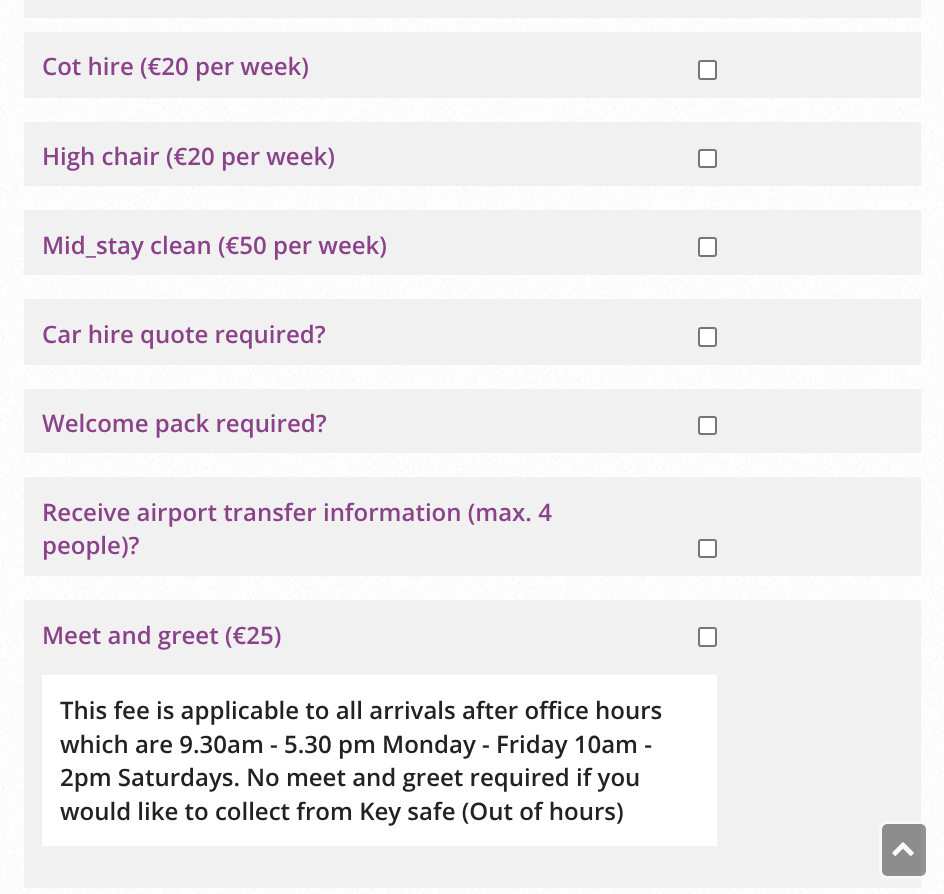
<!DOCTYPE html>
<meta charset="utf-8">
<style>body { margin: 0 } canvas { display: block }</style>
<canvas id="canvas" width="944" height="894"></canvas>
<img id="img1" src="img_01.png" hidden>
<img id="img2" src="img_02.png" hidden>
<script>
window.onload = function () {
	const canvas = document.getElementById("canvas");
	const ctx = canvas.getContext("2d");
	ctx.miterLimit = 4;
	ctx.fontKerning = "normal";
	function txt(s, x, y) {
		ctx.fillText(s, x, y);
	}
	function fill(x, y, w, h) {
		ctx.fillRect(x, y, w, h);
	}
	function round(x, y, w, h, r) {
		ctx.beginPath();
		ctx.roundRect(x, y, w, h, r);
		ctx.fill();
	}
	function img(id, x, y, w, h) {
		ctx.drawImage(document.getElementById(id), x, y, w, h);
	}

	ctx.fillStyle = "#FFFFFF";
	fill(0, 0, 944, 894);
	img("img1", 0, 0, 944, 894);
	ctx.fillStyle = "#F1F1F1";
	fill(24, 0, 897, 18);
	fill(24, 32, 897, 66);
	ctx.fillStyle = "#FFFFFF";
	ctx.beginPath();
	ctx.roundRect(699, 61, 17, 18, 2);
	ctx.fill();
	ctx.strokeStyle = "#767676";
	ctx.lineWidth = 2;
	ctx.stroke();
	ctx.fillStyle = "#F1F1F1";
	fill(24, 122, 897, 64);
	ctx.fillStyle = "#FFFFFF";
	ctx.beginPath();
	ctx.roundRect(699, 150, 17, 17, 2);
	ctx.fill();
	ctx.stroke();
	ctx.fillStyle = "#F1F1F1";
	fill(24, 210, 897, 65);
	ctx.fillStyle = "#FFFFFF";
	ctx.beginPath();
	ctx.roundRect(699, 238, 17, 18, 2);
	ctx.fill();
	ctx.stroke();
	ctx.fillStyle = "#F1F1F1";
	fill(24, 299, 897, 66);
	ctx.fillStyle = "#FFFFFF";
	ctx.beginPath();
	ctx.roundRect(699, 328, 17, 18, 2);
	ctx.fill();
	ctx.stroke();
	ctx.fillStyle = "#F1F1F1";
	fill(24, 389, 897, 64);
	ctx.fillStyle = "#FFFFFF";
	ctx.beginPath();
	ctx.roundRect(699, 417, 17, 17, 2);
	ctx.fill();
	ctx.stroke();
	ctx.fillStyle = "#F1F1F1";
	fill(24, 477, 897, 99);
	ctx.fillStyle = "#FFFFFF";
	ctx.beginPath();
	ctx.roundRect(699, 540, 17, 17, 2);
	ctx.fill();
	ctx.stroke();
	ctx.fillStyle = "#F1F1F1";
	fill(24, 600, 897, 288);
	ctx.fillStyle = "#FFFFFF";
	ctx.beginPath();
	ctx.roundRect(699, 628, 17, 18, 2);
	ctx.fill();
	ctx.stroke();
	fill(42, 675, 675, 171);
	ctx.fillStyle = "rgba(75, 75, 75, 0.6)";
	round(882, 824, 44, 52, 5);
	ctx.beginPath();
	ctx.roundRect(880.5, 822.5, 47, 55, 6.5);
	ctx.strokeStyle = "rgba(251, 251, 251, 0.7)";
	ctx.lineWidth = 3;
	ctx.stroke();
	img("img2", 892, 842, 22, 14);
	ctx.font = "600 24px Open Sans";
	ctx.fillStyle = "#8B428A";
	txt("Cot hire (€20 per week)", 42, 75);
	txt("High chair (€20 per week)", 42, 165);
	txt("Mid_stay clean (€50 per week)", 42, 254);
	txt("Car hire quote required?", 42, 343);
	txt("Welcome pack required?", 42, 432);
	txt("Receive airport transfer information (max. 4", 42, 521);
	txt("people)?", 42, 554);
	txt("Meet and greet (€25)", 42, 644);
	ctx.fillStyle = "#222222";
	txt("This fee is applicable to all arrivals after office hours", 60, 719);
	txt("which are 9.30am - 5.30 pm Monday - Friday 10am -", 60, 753);
	txt("2pm Saturdays. No meet and greet required if you", 60, 786);
	txt("would like to collect from Key safe (Out of hours)", 60, 820);
};
</script>
